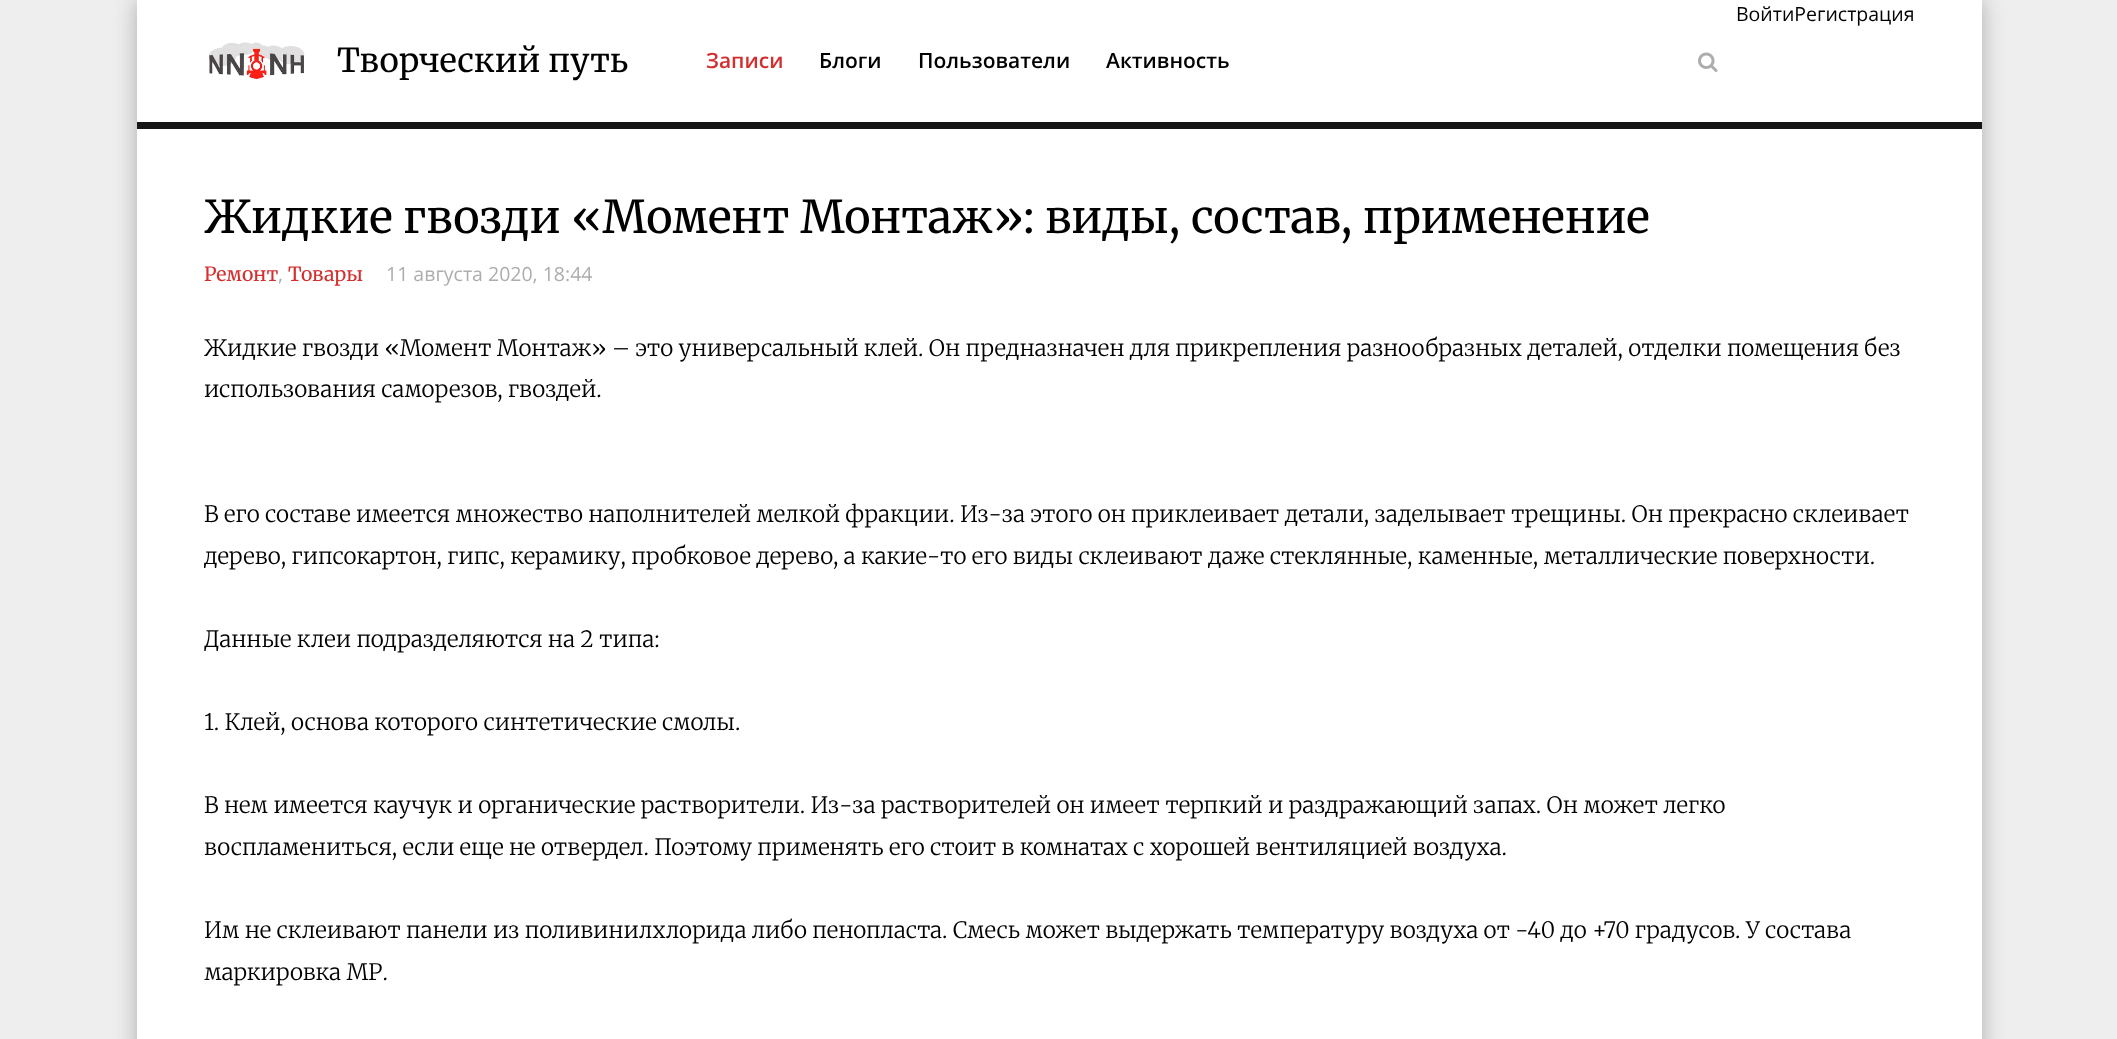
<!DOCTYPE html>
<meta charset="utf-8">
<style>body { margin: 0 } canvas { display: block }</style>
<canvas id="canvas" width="2117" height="1039"></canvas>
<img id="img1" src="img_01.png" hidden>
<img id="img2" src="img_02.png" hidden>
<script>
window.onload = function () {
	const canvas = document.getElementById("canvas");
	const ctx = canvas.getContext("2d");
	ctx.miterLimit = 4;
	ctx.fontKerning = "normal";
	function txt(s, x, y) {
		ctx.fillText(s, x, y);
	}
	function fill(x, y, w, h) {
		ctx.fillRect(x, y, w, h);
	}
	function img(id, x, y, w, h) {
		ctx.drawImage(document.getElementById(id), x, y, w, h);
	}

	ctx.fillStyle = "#EEEEEE";
	fill(0, 0, 2117, 1039);
	ctx.fillStyle = "#ADADAD";
	ctx.filter = "blur(11px)";
	ctx.beginPath();
	ctx.rect(137, 0, 1845, 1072);
	ctx.fill();
	ctx.filter = "none";
	ctx.fillStyle = "#FFFFFF";
	fill(137, 0, 1845, 1039);
	ctx.fillStyle = "#161616";
	fill(137, 122, 1845, 7);
	img("img1", 208, 42, 97, 38);
	img("img2", 1698, 52, 20, 20);
	ctx.font = "33px Merriweather";
	ctx.fillStyle = "#000000";
	txt("Творческий путь", 337, 72);
	ctx.font = "19.5px Open Sans";
	txt("ВойтиРегистрация", 1736, 21);
	ctx.font = "600 21px Open Sans";
	ctx.fillStyle = "#D32F2F";
	txt("Записи", 706, 68);
	ctx.fillStyle = "#000000";
	txt("Блоги", 819, 68);
	txt("Пользователи", 918, 68);
	txt("Активность", 1106, 68);
	ctx.font = "45px Merriweather";
	txt("Жидкие гвозди «Момент Монтаж»: виды, состав, применение", 204, 233);
	ctx.font = "19.5px Merriweather";
	ctx.fillStyle = "#D32F2F";
	txt("Ремонт", 204, 281);
	ctx.font = "19.5px Open Sans";
	ctx.fillStyle = "#ADADAD";
	txt(",", 278, 281);
	ctx.font = "19.5px Merriweather";
	ctx.fillStyle = "#D32F2F";
	txt("Товары", 288, 281);
	ctx.font = "19.5px Open Sans";
	ctx.fillStyle = "#ADADAD";
	txt("11 августа 2020, 18:44", 386, 281);
	ctx.font = "300 22.5px Merriweather";
	ctx.fillStyle = "#000000";
	txt("Жидкие гвозди «Момент Монтаж» – это универсальный клей. Он предназначен для прикрепления разнообразных деталей, отделки помещения без", 204, 356);
	txt("использования саморезов, гвоздей.", 204, 397);
	txt("В его составе имеется множество наполнителей мелкой фракции. Из-за этого он приклеивает детали, заделывает трещины. Он прекрасно склеивает", 204, 522);
	txt("дерево, гипсокартон, гипс, керамику, пробковое дерево, а какие-то его виды склеивают даже стеклянные, каменные, металлические поверхности.", 204, 564);
	txt("Данные клеи подразделяются на 2 типа:", 204, 647);
	txt("1. Клей, основа которого синтетические смолы.", 204, 730);
	txt("В нем имеется каучук и органические растворители. Из-за растворителей он имеет терпкий и раздражающий запах. Он может легко", 204, 813);
	txt("воспламениться, если еще не отвердел. Поэтому применять его стоит в комнатах с хорошей вентиляцией воздуха.", 204, 855);
	txt("Им не склеивают панели из поливинилхлорида либо пенопласта. Смесь может выдержать температуру воздуха от -40 до +70 градусов. У состава", 204, 938);
	txt("маркировка МР.", 204, 980);
};
</script>
